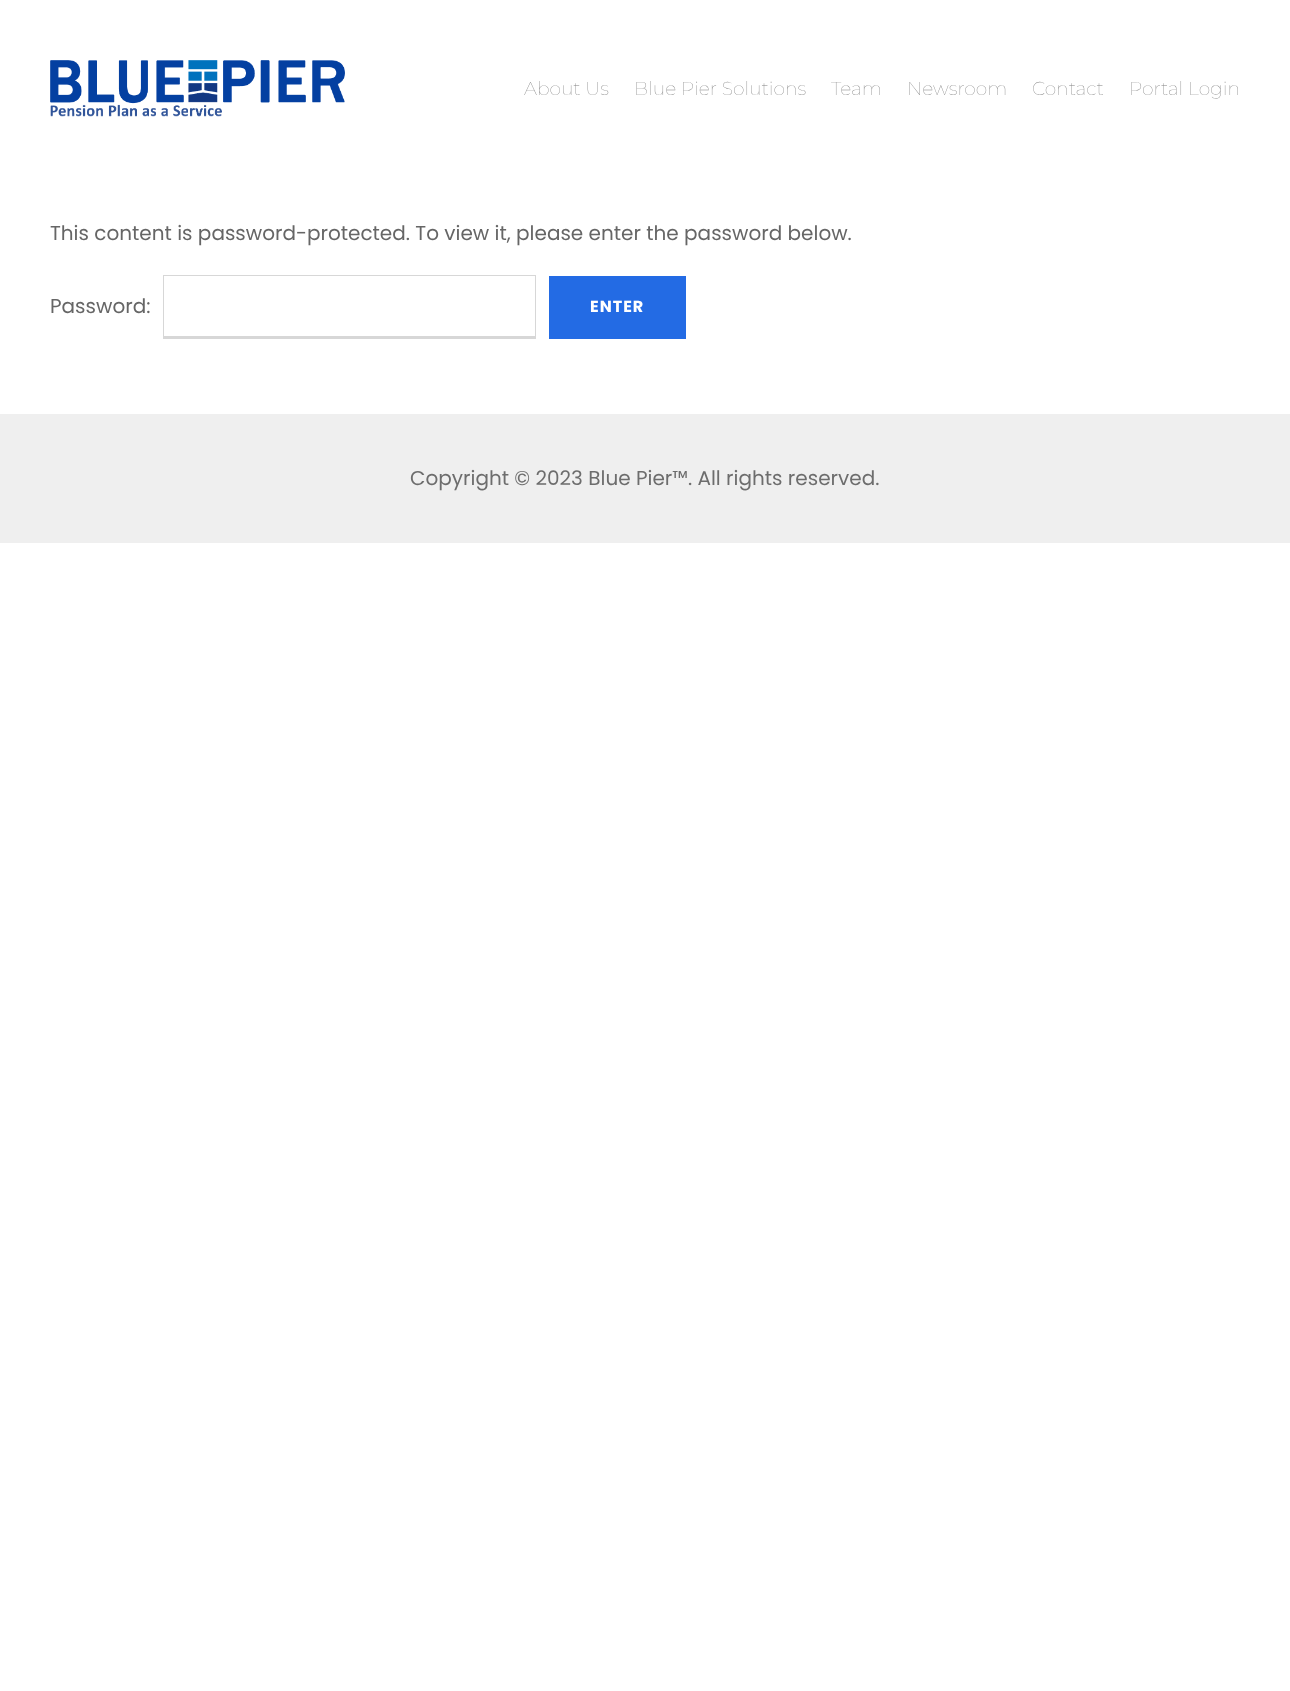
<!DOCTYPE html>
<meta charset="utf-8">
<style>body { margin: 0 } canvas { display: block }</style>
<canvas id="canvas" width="1290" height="1691"></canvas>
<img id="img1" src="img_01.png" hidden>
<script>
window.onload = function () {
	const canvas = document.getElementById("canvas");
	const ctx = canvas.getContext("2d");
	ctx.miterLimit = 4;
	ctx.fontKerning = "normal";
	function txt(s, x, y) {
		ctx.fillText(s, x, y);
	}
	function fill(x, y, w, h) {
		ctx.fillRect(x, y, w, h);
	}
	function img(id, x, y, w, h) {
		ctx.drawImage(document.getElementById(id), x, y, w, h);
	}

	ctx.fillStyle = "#FFFFFF";
	fill(0, 0, 1290, 1691);
	img("img1", 50, 60, 295, 57);
	ctx.fillStyle = "#D7D7D7";
	fill(163, 275, 373, 1);
	fill(535, 275, 1, 64);
	fill(163, 336, 373, 3);
	fill(163, 275, 1, 64);
	ctx.fillStyle = "#236BE4";
	fill(549, 276, 137, 63);
	ctx.fillStyle = "#EFEFEF";
	fill(0, 414, 1290, 129);
	ctx.font = "100 18.75px Montserrat";
	ctx.fillStyle = "#818181";
	txt("About Us", 524, 95);
	txt("Blue Pier Solutions", 634, 95);
	txt("Team", 831, 95);
	txt("Newsroom", 907, 95);
	txt("Contact", 1032, 95);
	txt("Portal Login", 1129, 95);
	ctx.font = "20px Poppins";
	ctx.fillStyle = "#666666";
	txt("This content is password-protected. To view it, please enter the password below.", 50, 240);
	txt("Password:", 50, 313);
	ctx.letterSpacing = "1px";
	ctx.font = "bold 16px Poppins";
	ctx.fillStyle = "#FFFFFF";
	txt("ENTER", 590, 312);
	ctx.letterSpacing = "0px";
	ctx.font = "20px Poppins";
	ctx.fillStyle = "#6D6D6D";
	txt("Copyright © 2023 Blue Pier™. All rights reserved.", 410, 485);
};
</script>
